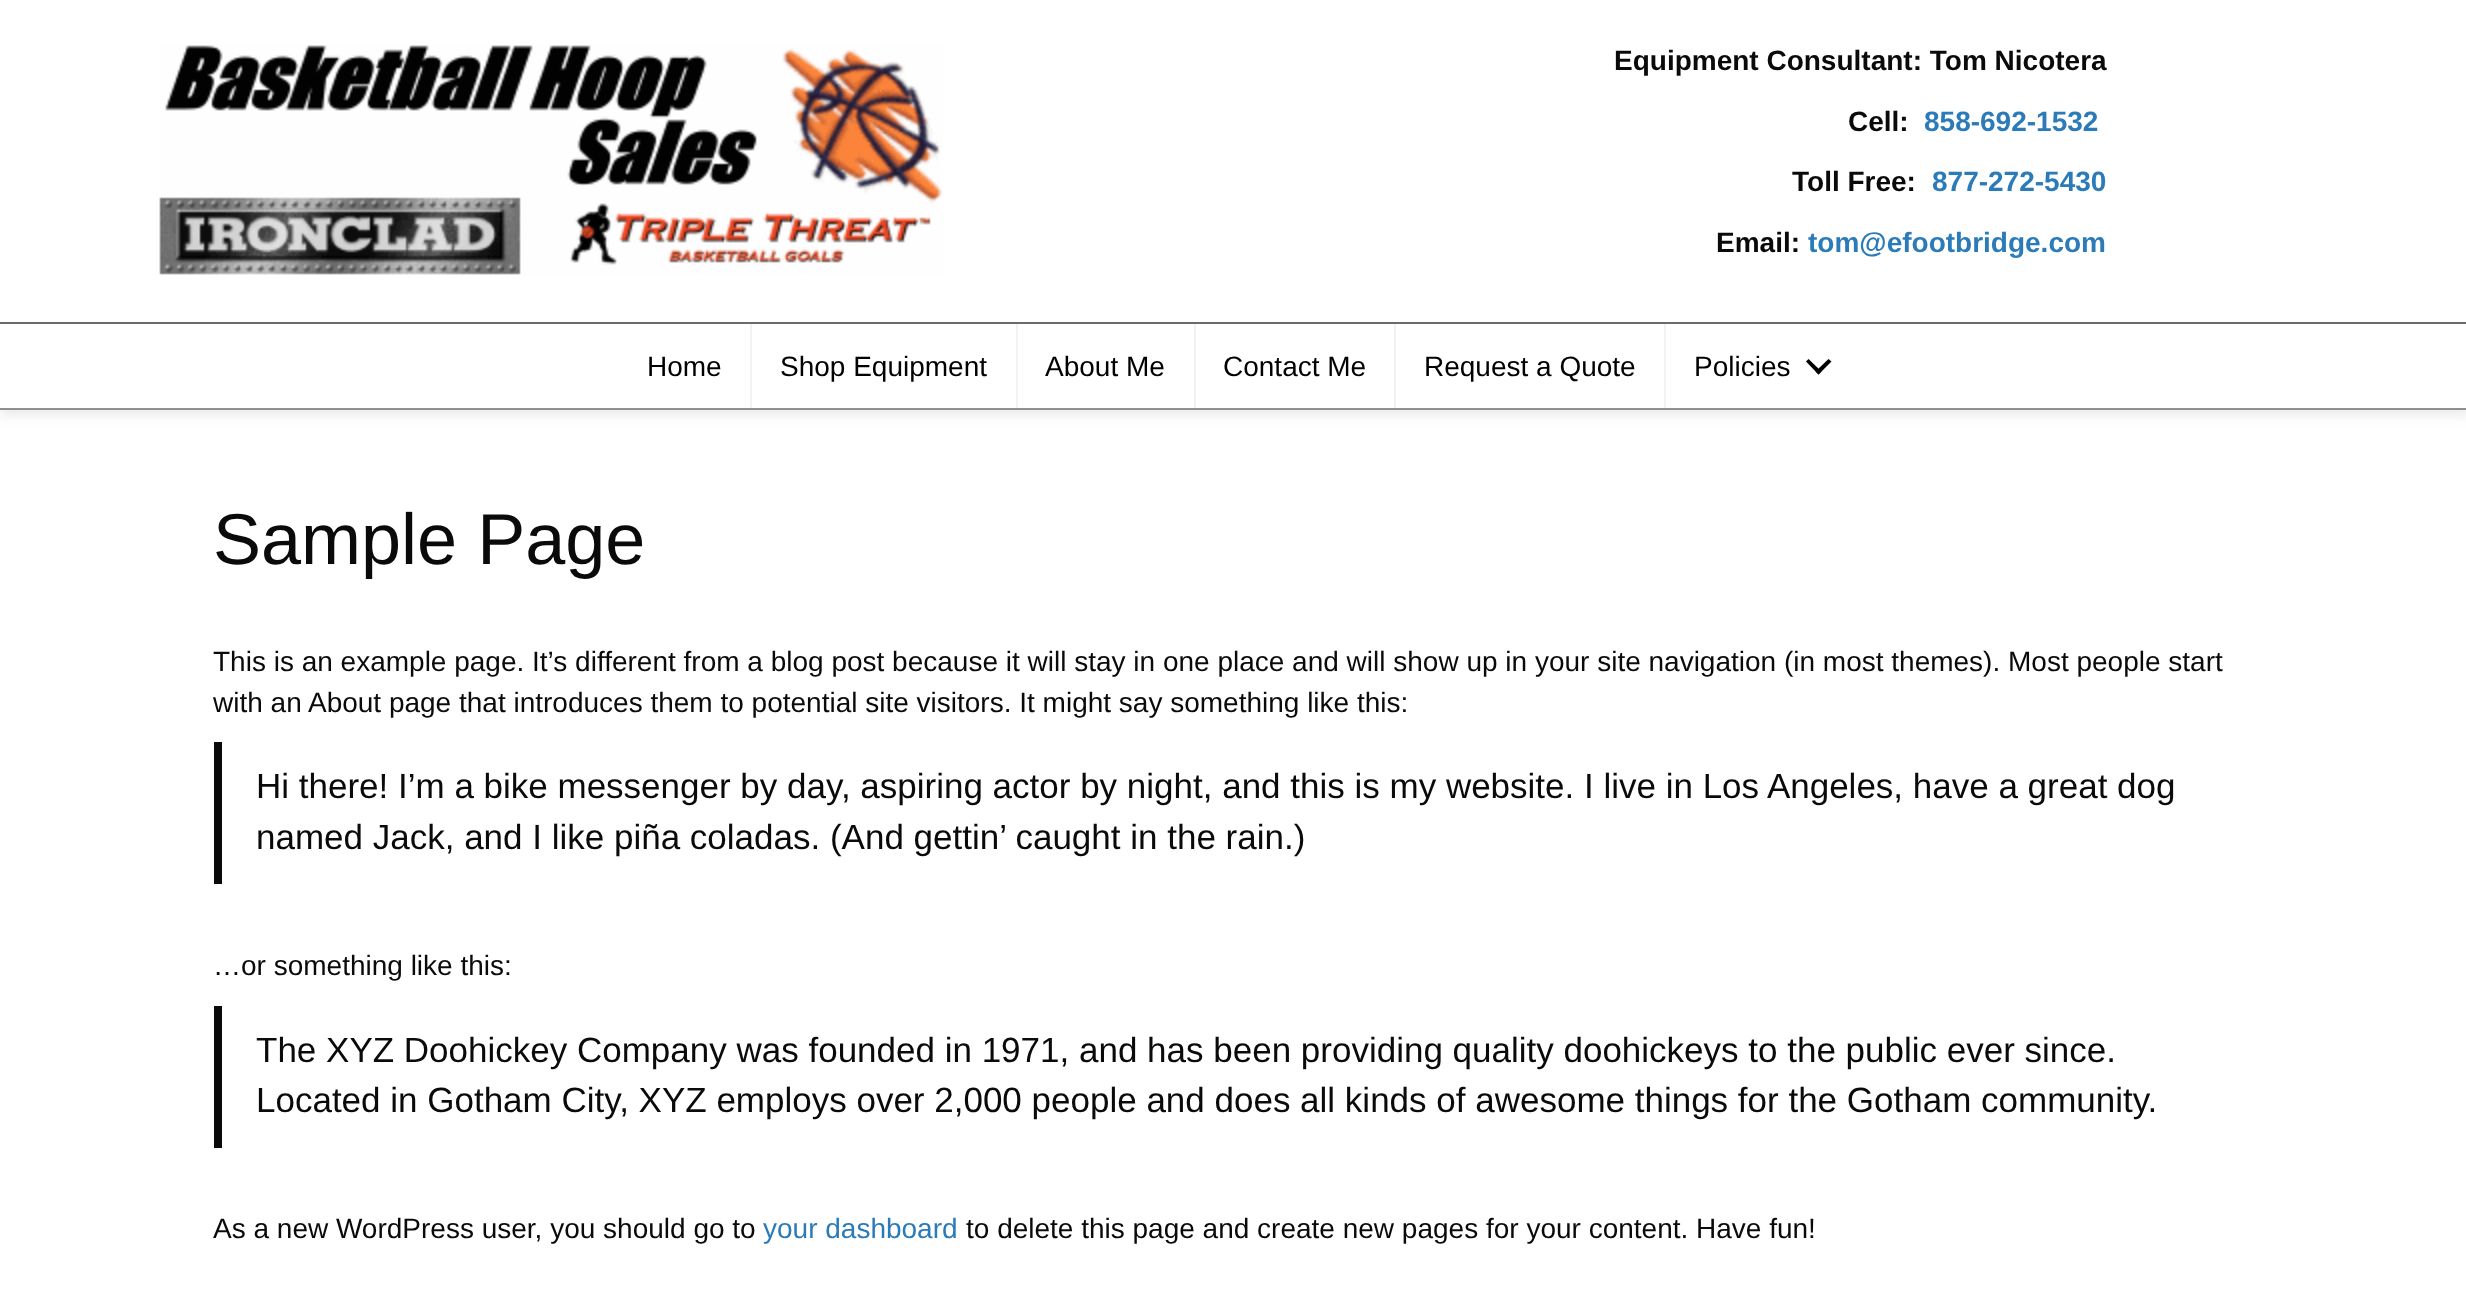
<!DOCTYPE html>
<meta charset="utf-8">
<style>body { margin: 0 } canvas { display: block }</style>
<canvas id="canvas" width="2466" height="1297"></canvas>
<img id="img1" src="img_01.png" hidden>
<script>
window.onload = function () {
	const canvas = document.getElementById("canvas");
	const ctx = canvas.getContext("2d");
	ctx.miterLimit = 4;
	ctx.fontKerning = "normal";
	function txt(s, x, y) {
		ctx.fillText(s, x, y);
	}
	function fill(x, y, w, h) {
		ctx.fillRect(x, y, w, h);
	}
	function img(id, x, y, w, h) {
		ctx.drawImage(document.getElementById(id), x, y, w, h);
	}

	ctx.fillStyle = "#FFFFFF";
	fill(0, 0, 2466, 1297);
	ctx.fillStyle = "rgba(0, 0, 0, 0.1)";
	ctx.filter = "blur(7px)";
	ctx.beginPath();
	ctx.rect(0, 0, 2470, 414);
	ctx.fill();
	ctx.filter = "none";
	ctx.fillStyle = "#FFFFFF";
	fill(0, 0, 2466, 408);
	ctx.fillStyle = "#8F8F8F";
	fill(0, 408, 2466, 2);
	img("img1", 159, 45, 784, 230);
	ctx.fillStyle = "#6B6B6B";
	fill(0, 322, 2466, 2);
	ctx.fillStyle = "#F2F2F2";
	fill(750, 324, 2, 84);
	fill(1016, 324, 2, 84);
	fill(1194, 324, 2, 84);
	fill(1394, 324, 2, 84);
	fill(1664, 324, 2, 84);
	ctx.fillStyle = "#000000";
	ctx.beginPath();
	ctx.moveTo(1828.5, 359);
	ctx.lineTo(1831.5, 361.5);
	ctx.lineTo(1818.5, 374.5);
	ctx.lineTo(1815.5, 371.5);
	ctx.closePath();
	ctx.fill();
	ctx.beginPath();
	ctx.moveTo(1808.5, 359);
	ctx.lineTo(1821.5, 371.5);
	ctx.lineTo(1818.5, 374.5);
	ctx.lineTo(1806, 361.5);
	ctx.closePath();
	ctx.fill();
	ctx.fillStyle = "#0A0A0A";
	fill(214, 742, 8, 142);
	fill(214, 1006, 8, 142);
	ctx.font = "bold 28px Liberation Sans";
	txt("Equipment Consultant: Tom Nicotera", 1614, 70);
	txt("Cell:", 1848, 131);
	ctx.fillStyle = "#2B7BB9";
	txt("858-692-1532", 1924, 131);
	ctx.fillStyle = "#0A0A0A";
	txt("Toll Free:", 1792, 191);
	ctx.fillStyle = "#2B7BB9";
	txt("877-272-5430", 1932, 191);
	ctx.fillStyle = "#0A0A0A";
	txt("Email:", 1716, 252);
	ctx.fillStyle = "#2B7BB9";
	txt("tom@efootbridge.com", 1808, 252);
	ctx.font = "28px Liberation Sans";
	ctx.fillStyle = "#000000";
	txt("Home", 647, 376);
	txt("Shop Equipment", 780, 376);
	txt("About Me", 1045, 376);
	txt("Contact Me", 1223, 376);
	txt("Request a Quote", 1424, 376);
	txt("Policies", 1694, 376);
	ctx.font = "72px Liberation Sans";
	ctx.fillStyle = "#0A0A0A";
	txt("Sample Page", 213, 564);
	ctx.font = "28px Liberation Sans";
	txt("This is an example page. It’s different from a blog post because it will stay in one place and will show up in your site navigation (in most themes). Most people start", 213, 671);
	txt("with an About page that introduces them to potential site visitors. It might say something like this:", 213, 712);
	ctx.font = "35px Liberation Sans";
	txt("Hi there! I’m a bike messenger by day, aspiring actor by night, and this is my website. I live in Los Angeles, have a great dog", 256, 798);
	txt("named Jack, and I like piña coladas. (And gettin’ caught in the rain.)", 256, 849);
	ctx.font = "28px Liberation Sans";
	txt("…or something like this:", 213, 975);
	ctx.font = "35px Liberation Sans";
	txt("The XYZ Doohickey Company was founded in 1971, and has been providing quality doohickeys to the public ever since.", 256, 1062);
	txt("Located in Gotham City, XYZ employs over 2,000 people and does all kinds of awesome things for the Gotham community.", 256, 1112);
	ctx.font = "28px Liberation Sans";
	txt("As a new WordPress user, you should go to", 213, 1238);
	ctx.fillStyle = "#2B7BB9";
	txt("your dashboard", 763, 1238);
	ctx.fillStyle = "#0A0A0A";
	txt("to delete this page and create new pages for your content. Have fun!", 966, 1238);
};
</script>
